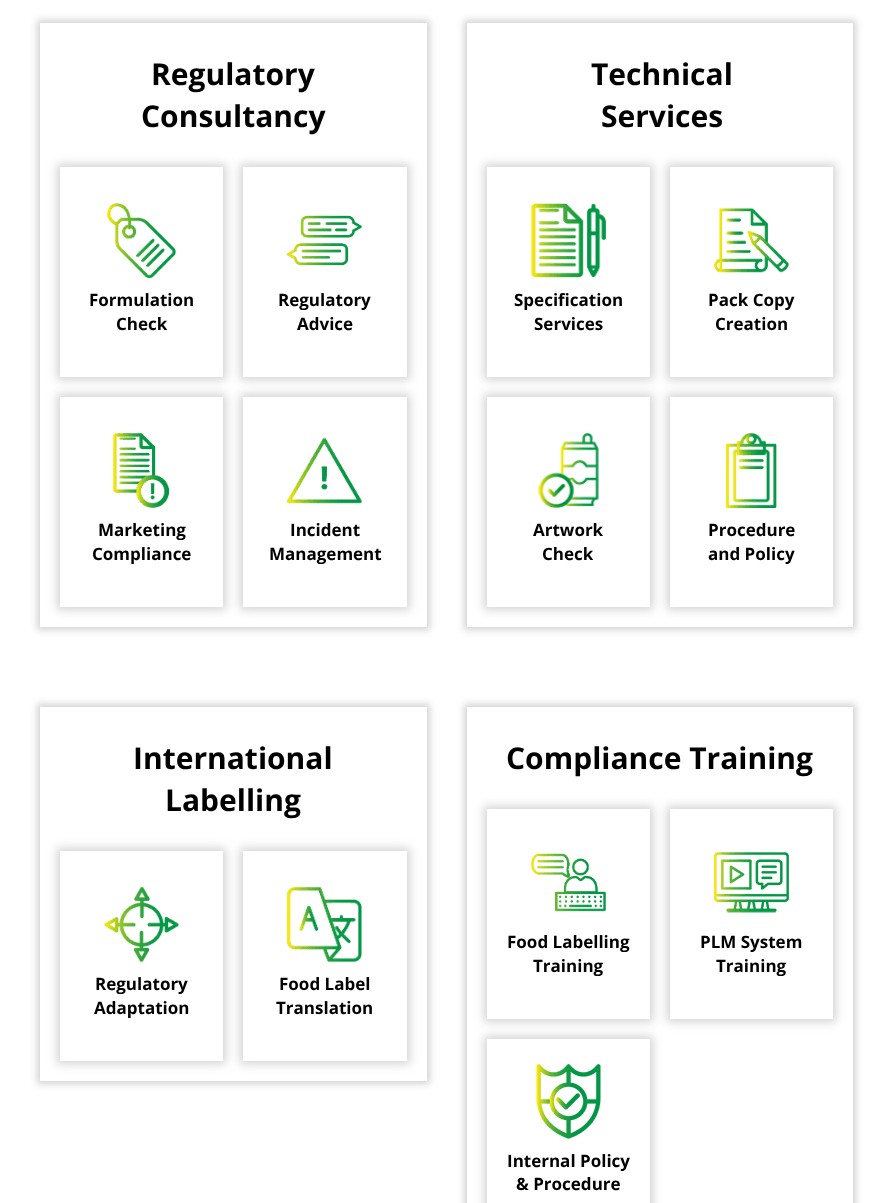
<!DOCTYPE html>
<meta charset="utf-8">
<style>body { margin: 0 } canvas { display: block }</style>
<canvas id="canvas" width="893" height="1203"></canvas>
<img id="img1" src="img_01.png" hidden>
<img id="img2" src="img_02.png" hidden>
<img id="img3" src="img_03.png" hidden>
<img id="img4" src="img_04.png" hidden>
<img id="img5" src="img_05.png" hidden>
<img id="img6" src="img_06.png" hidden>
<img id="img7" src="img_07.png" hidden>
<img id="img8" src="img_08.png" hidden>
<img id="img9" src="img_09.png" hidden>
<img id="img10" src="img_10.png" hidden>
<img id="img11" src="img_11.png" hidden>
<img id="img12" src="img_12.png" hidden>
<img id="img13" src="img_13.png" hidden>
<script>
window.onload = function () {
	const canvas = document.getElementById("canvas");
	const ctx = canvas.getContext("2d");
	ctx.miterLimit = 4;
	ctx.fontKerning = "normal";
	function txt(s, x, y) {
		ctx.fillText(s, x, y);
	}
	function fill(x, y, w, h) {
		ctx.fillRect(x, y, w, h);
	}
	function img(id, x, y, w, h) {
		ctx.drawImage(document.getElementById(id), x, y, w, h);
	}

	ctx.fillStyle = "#FFFFFF";
	fill(0, 0, 893, 1203);
	ctx.save();
	ctx.beginPath();
	ctx.moveTo(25, 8);
	ctx.lineTo(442, 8);
	ctx.lineTo(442, 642);
	ctx.lineTo(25, 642);
	ctx.closePath();
	ctx.moveTo(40, 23);
	ctx.lineTo(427, 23);
	ctx.lineTo(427, 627);
	ctx.lineTo(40, 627);
	ctx.closePath();
	ctx.clip("evenodd");
	ctx.fillStyle = "rgba(168, 168, 168, 0.5)";
	ctx.filter = "blur(3.5px)";
	ctx.beginPath();
	ctx.rect(37, 20, 393, 610);
	ctx.fill();
	ctx.filter = "none";
	ctx.restore();
	ctx.save();
	ctx.beginPath();
	ctx.moveTo(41, 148);
	ctx.lineTo(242, 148);
	ctx.lineTo(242, 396);
	ctx.lineTo(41, 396);
	ctx.closePath();
	ctx.moveTo(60, 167);
	ctx.lineTo(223, 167);
	ctx.lineTo(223, 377);
	ctx.lineTo(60, 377);
	ctx.closePath();
	ctx.clip("evenodd");
	ctx.fillStyle = "rgba(168, 168, 168, 0.5)";
	ctx.filter = "blur(5px)";
	ctx.beginPath();
	ctx.rect(57, 164, 169, 216);
	ctx.fill();
	ctx.filter = "none";
	ctx.restore();
	img("img1", 106, 203, 70, 75);
	ctx.save();
	ctx.beginPath();
	ctx.moveTo(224, 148);
	ctx.lineTo(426, 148);
	ctx.lineTo(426, 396);
	ctx.lineTo(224, 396);
	ctx.closePath();
	ctx.moveTo(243, 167);
	ctx.lineTo(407, 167);
	ctx.lineTo(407, 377);
	ctx.lineTo(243, 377);
	ctx.closePath();
	ctx.clip("evenodd");
	ctx.fillStyle = "rgba(168, 168, 168, 0.5)";
	ctx.filter = "blur(5px)";
	ctx.beginPath();
	ctx.rect(240, 164, 170, 216);
	ctx.fill();
	ctx.filter = "none";
	ctx.restore();
	img("img2", 287, 215, 75, 51);
	ctx.save();
	ctx.beginPath();
	ctx.moveTo(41, 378);
	ctx.lineTo(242, 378);
	ctx.lineTo(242, 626);
	ctx.lineTo(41, 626);
	ctx.closePath();
	ctx.moveTo(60, 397);
	ctx.lineTo(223, 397);
	ctx.lineTo(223, 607);
	ctx.lineTo(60, 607);
	ctx.closePath();
	ctx.clip("evenodd");
	ctx.fillStyle = "rgba(168, 168, 168, 0.5)";
	ctx.filter = "blur(5px)";
	ctx.beginPath();
	ctx.rect(57, 394, 169, 216);
	ctx.fill();
	ctx.filter = "none";
	ctx.restore();
	img("img3", 113, 433, 57, 75);
	ctx.save();
	ctx.beginPath();
	ctx.moveTo(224, 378);
	ctx.lineTo(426, 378);
	ctx.lineTo(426, 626);
	ctx.lineTo(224, 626);
	ctx.closePath();
	ctx.moveTo(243, 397);
	ctx.lineTo(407, 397);
	ctx.lineTo(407, 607);
	ctx.lineTo(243, 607);
	ctx.closePath();
	ctx.clip("evenodd");
	ctx.fillStyle = "rgba(168, 168, 168, 0.5)";
	ctx.filter = "blur(5px)";
	ctx.beginPath();
	ctx.rect(240, 394, 170, 216);
	ctx.fill();
	ctx.filter = "none";
	ctx.restore();
	img("img4", 287, 437, 75, 67);
	ctx.save();
	ctx.beginPath();
	ctx.moveTo(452, 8);
	ctx.lineTo(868, 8);
	ctx.lineTo(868, 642);
	ctx.lineTo(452, 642);
	ctx.closePath();
	ctx.moveTo(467, 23);
	ctx.lineTo(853, 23);
	ctx.lineTo(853, 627);
	ctx.lineTo(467, 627);
	ctx.closePath();
	ctx.clip("evenodd");
	ctx.fillStyle = "rgba(168, 168, 168, 0.5)";
	ctx.filter = "blur(3.5px)";
	ctx.beginPath();
	ctx.rect(464, 20, 392, 610);
	ctx.fill();
	ctx.filter = "none";
	ctx.restore();
	ctx.save();
	ctx.beginPath();
	ctx.moveTo(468, 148);
	ctx.lineTo(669, 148);
	ctx.lineTo(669, 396);
	ctx.lineTo(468, 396);
	ctx.closePath();
	ctx.moveTo(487, 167);
	ctx.lineTo(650, 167);
	ctx.lineTo(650, 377);
	ctx.lineTo(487, 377);
	ctx.closePath();
	ctx.clip("evenodd");
	ctx.fillStyle = "rgba(168, 168, 168, 0.5)";
	ctx.filter = "blur(5px)";
	ctx.beginPath();
	ctx.rect(484, 164, 169, 216);
	ctx.fill();
	ctx.filter = "none";
	ctx.restore();
	img("img5", 531, 203, 75, 75);
	ctx.save();
	ctx.beginPath();
	ctx.moveTo(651, 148);
	ctx.lineTo(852, 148);
	ctx.lineTo(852, 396);
	ctx.lineTo(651, 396);
	ctx.closePath();
	ctx.moveTo(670, 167);
	ctx.lineTo(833, 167);
	ctx.lineTo(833, 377);
	ctx.lineTo(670, 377);
	ctx.closePath();
	ctx.clip("evenodd");
	ctx.fillStyle = "rgba(168, 168, 168, 0.5)";
	ctx.filter = "blur(5px)";
	ctx.beginPath();
	ctx.rect(667, 164, 169, 216);
	ctx.fill();
	ctx.filter = "none";
	ctx.restore();
	img("img6", 714, 208, 75, 65);
	ctx.save();
	ctx.beginPath();
	ctx.moveTo(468, 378);
	ctx.lineTo(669, 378);
	ctx.lineTo(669, 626);
	ctx.lineTo(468, 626);
	ctx.closePath();
	ctx.moveTo(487, 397);
	ctx.lineTo(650, 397);
	ctx.lineTo(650, 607);
	ctx.lineTo(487, 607);
	ctx.closePath();
	ctx.clip("evenodd");
	ctx.fillStyle = "rgba(168, 168, 168, 0.5)";
	ctx.filter = "blur(5px)";
	ctx.beginPath();
	ctx.rect(484, 394, 169, 216);
	ctx.fill();
	ctx.filter = "none";
	ctx.restore();
	img("img7", 538, 433, 61, 75);
	ctx.save();
	ctx.beginPath();
	ctx.moveTo(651, 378);
	ctx.lineTo(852, 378);
	ctx.lineTo(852, 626);
	ctx.lineTo(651, 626);
	ctx.closePath();
	ctx.moveTo(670, 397);
	ctx.lineTo(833, 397);
	ctx.lineTo(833, 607);
	ctx.lineTo(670, 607);
	ctx.closePath();
	ctx.clip("evenodd");
	ctx.fillStyle = "rgba(168, 168, 168, 0.5)";
	ctx.filter = "blur(5px)";
	ctx.beginPath();
	ctx.rect(667, 394, 169, 216);
	ctx.fill();
	ctx.filter = "none";
	ctx.restore();
	img("img8", 726, 433, 51, 75);
	ctx.save();
	ctx.beginPath();
	ctx.moveTo(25, 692);
	ctx.lineTo(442, 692);
	ctx.lineTo(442, 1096);
	ctx.lineTo(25, 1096);
	ctx.closePath();
	ctx.moveTo(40, 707);
	ctx.lineTo(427, 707);
	ctx.lineTo(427, 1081);
	ctx.lineTo(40, 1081);
	ctx.closePath();
	ctx.clip("evenodd");
	ctx.fillStyle = "rgba(168, 168, 168, 0.5)";
	ctx.filter = "blur(3.5px)";
	ctx.beginPath();
	ctx.rect(37, 704, 393, 380);
	ctx.fill();
	ctx.filter = "none";
	ctx.restore();
	ctx.save();
	ctx.beginPath();
	ctx.moveTo(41, 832);
	ctx.lineTo(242, 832);
	ctx.lineTo(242, 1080);
	ctx.lineTo(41, 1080);
	ctx.closePath();
	ctx.moveTo(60, 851);
	ctx.lineTo(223, 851);
	ctx.lineTo(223, 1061);
	ctx.lineTo(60, 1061);
	ctx.closePath();
	ctx.clip("evenodd");
	ctx.fillStyle = "rgba(168, 168, 168, 0.5)";
	ctx.filter = "blur(5px)";
	ctx.beginPath();
	ctx.rect(57, 848, 169, 216);
	ctx.fill();
	ctx.filter = "none";
	ctx.restore();
	img("img9", 104, 887, 75, 75);
	ctx.save();
	ctx.beginPath();
	ctx.moveTo(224, 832);
	ctx.lineTo(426, 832);
	ctx.lineTo(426, 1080);
	ctx.lineTo(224, 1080);
	ctx.closePath();
	ctx.moveTo(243, 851);
	ctx.lineTo(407, 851);
	ctx.lineTo(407, 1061);
	ctx.lineTo(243, 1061);
	ctx.closePath();
	ctx.clip("evenodd");
	ctx.fillStyle = "rgba(168, 168, 168, 0.5)";
	ctx.filter = "blur(5px)";
	ctx.beginPath();
	ctx.rect(240, 848, 170, 216);
	ctx.fill();
	ctx.filter = "none";
	ctx.restore();
	img("img10", 287, 887, 75, 75);
	ctx.save();
	ctx.beginPath();
	ctx.moveTo(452, 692);
	ctx.lineTo(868, 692);
	ctx.lineTo(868, 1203);
	ctx.lineTo(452, 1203);
	ctx.closePath();
	ctx.moveTo(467, 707);
	ctx.lineTo(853, 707);
	ctx.lineTo(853, 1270);
	ctx.lineTo(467, 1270);
	ctx.closePath();
	ctx.clip("evenodd");
	ctx.fillStyle = "rgba(168, 168, 168, 0.5)";
	ctx.filter = "blur(3.5px)";
	ctx.beginPath();
	ctx.rect(464, 704, 392, 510);
	ctx.fill();
	ctx.filter = "none";
	ctx.restore();
	ctx.save();
	ctx.beginPath();
	ctx.moveTo(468, 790);
	ctx.lineTo(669, 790);
	ctx.lineTo(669, 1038);
	ctx.lineTo(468, 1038);
	ctx.closePath();
	ctx.moveTo(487, 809);
	ctx.lineTo(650, 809);
	ctx.lineTo(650, 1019);
	ctx.lineTo(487, 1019);
	ctx.closePath();
	ctx.clip("evenodd");
	ctx.fillStyle = "rgba(168, 168, 168, 0.5)";
	ctx.filter = "blur(5px)";
	ctx.beginPath();
	ctx.rect(484, 806, 169, 216);
	ctx.fill();
	ctx.filter = "none";
	ctx.restore();
	img("img11", 531, 853, 75, 59);
	ctx.save();
	ctx.beginPath();
	ctx.moveTo(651, 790);
	ctx.lineTo(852, 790);
	ctx.lineTo(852, 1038);
	ctx.lineTo(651, 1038);
	ctx.closePath();
	ctx.moveTo(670, 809);
	ctx.lineTo(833, 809);
	ctx.lineTo(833, 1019);
	ctx.lineTo(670, 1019);
	ctx.closePath();
	ctx.clip("evenodd");
	ctx.fillStyle = "rgba(168, 168, 168, 0.5)";
	ctx.filter = "blur(5px)";
	ctx.beginPath();
	ctx.rect(667, 806, 169, 216);
	ctx.fill();
	ctx.filter = "none";
	ctx.restore();
	img("img12", 714, 852, 75, 61);
	ctx.save();
	ctx.beginPath();
	ctx.moveTo(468, 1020);
	ctx.lineTo(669, 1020);
	ctx.lineTo(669, 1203);
	ctx.lineTo(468, 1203);
	ctx.closePath();
	ctx.moveTo(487, 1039);
	ctx.lineTo(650, 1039);
	ctx.lineTo(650, 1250);
	ctx.lineTo(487, 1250);
	ctx.closePath();
	ctx.clip("evenodd");
	ctx.fillStyle = "rgba(168, 168, 168, 0.5)";
	ctx.filter = "blur(5px)";
	ctx.beginPath();
	ctx.rect(484, 1036, 169, 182);
	ctx.fill();
	ctx.filter = "none";
	ctx.restore();
	img("img13", 536, 1064, 65, 75);
	ctx.font = "bold 30px Open Sans";
	ctx.fillStyle = "#000000";
	txt("Regulatory", 151, 85);
	txt("Consultancy", 141, 127);
	ctx.font = "bold 17px Open Sans";
	txt("Formulation", 89, 306);
	txt("Check", 116, 330);
	txt("Regulatory", 278, 306);
	txt("Advice", 297, 330);
	txt("Marketing", 98, 536);
	txt("Compliance", 92, 560);
	txt("Incident", 290, 536);
	txt("Management", 269, 560);
	ctx.font = "bold 30px Open Sans";
	txt("Technical", 591, 85);
	txt("Services", 601, 127);
	ctx.font = "bold 17px Open Sans";
	txt("Specification", 514, 306);
	txt("Services", 534, 330);
	txt("Pack Copy", 708, 306);
	txt("Creation", 715, 330);
	txt("Artwork", 533, 536);
	txt("Check", 542, 560);
	txt("Procedure", 708, 536);
	txt("and Policy", 708, 560);
	ctx.font = "bold 30px Open Sans";
	txt("International", 133, 769);
	txt("Labelling", 165, 811);
	ctx.font = "bold 17px Open Sans";
	txt("Regulatory", 95, 990);
	txt("Adaptation", 94, 1014);
	txt("Food Label", 279, 990);
	txt("Translation", 276, 1014);
	ctx.font = "bold 30px Open Sans";
	txt("Compliance Training", 506, 769);
	ctx.font = "bold 17px Open Sans";
	txt("Food Labelling", 507, 948);
	txt("Training", 533, 972);
	txt("PLM System", 700, 948);
	txt("Training", 716, 972);
	txt("Internal Policy", 507, 1167);
	txt("& Procedure", 516, 1190);
};
</script>
